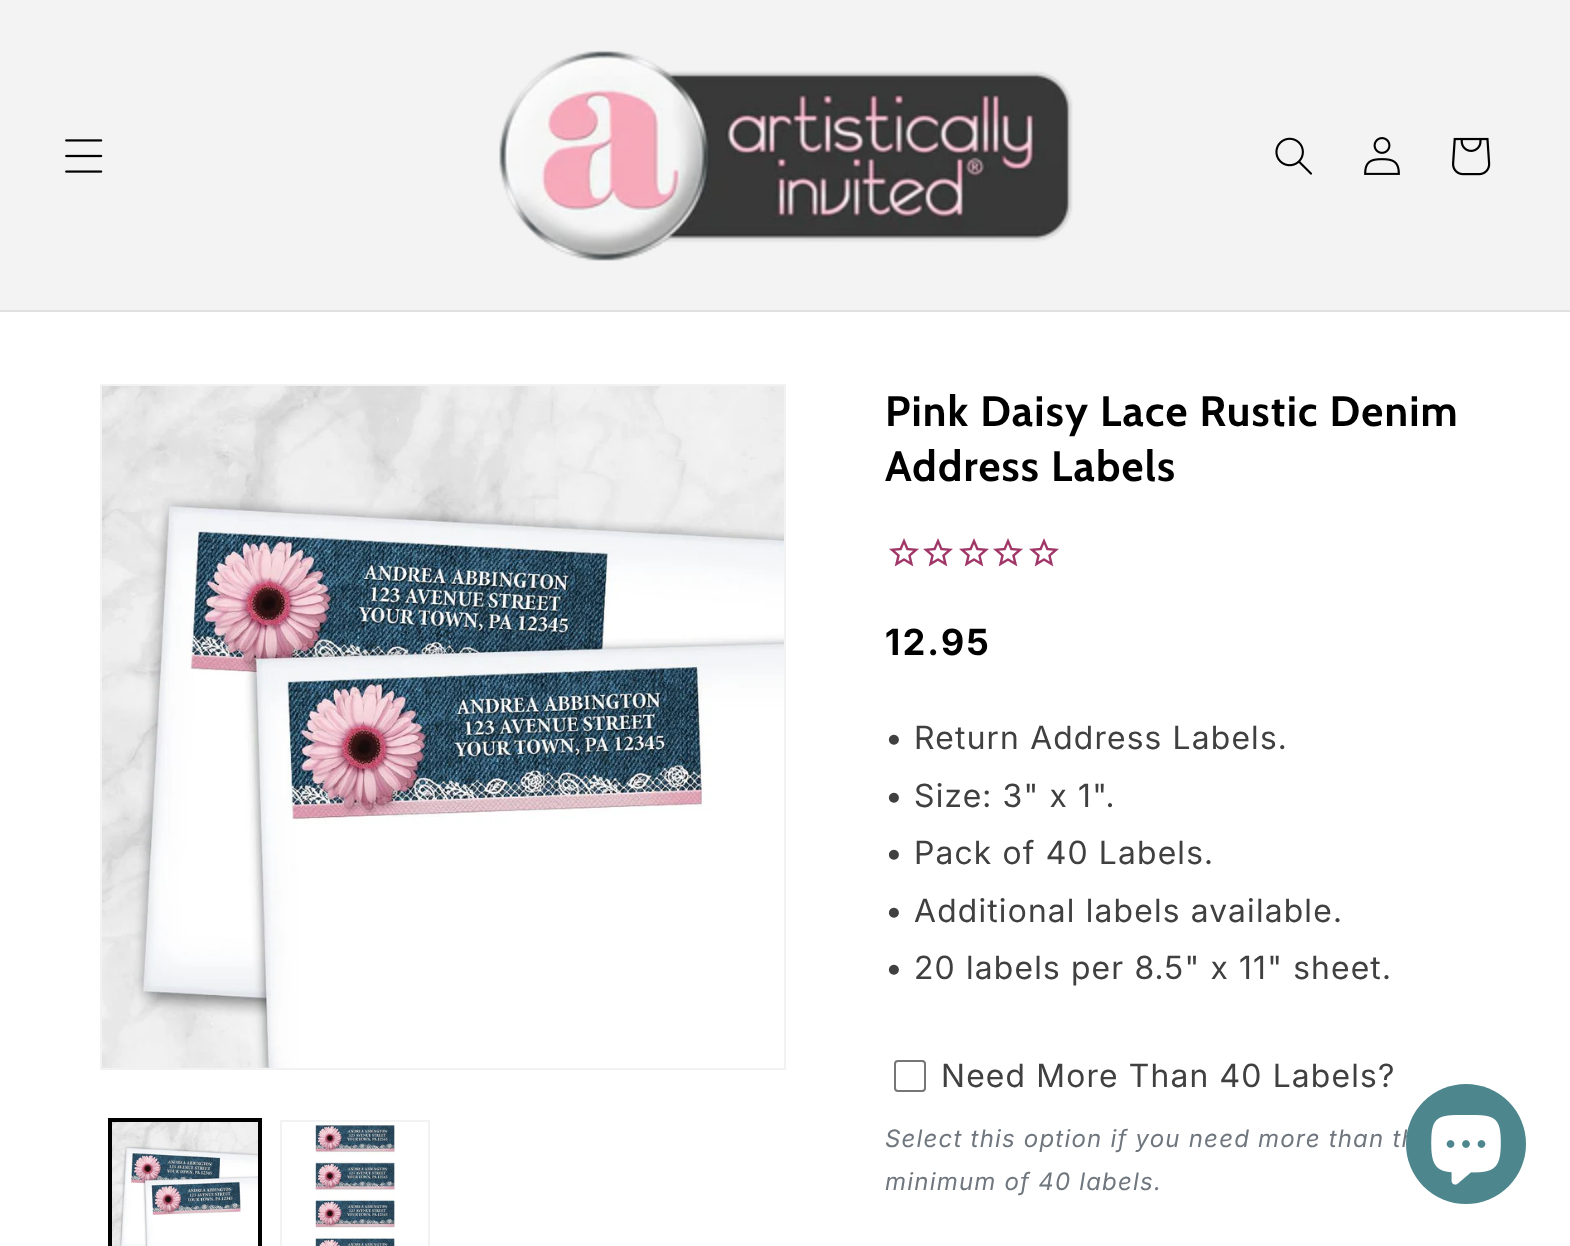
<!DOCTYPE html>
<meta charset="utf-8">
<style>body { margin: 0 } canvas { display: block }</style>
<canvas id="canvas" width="1570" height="1246"></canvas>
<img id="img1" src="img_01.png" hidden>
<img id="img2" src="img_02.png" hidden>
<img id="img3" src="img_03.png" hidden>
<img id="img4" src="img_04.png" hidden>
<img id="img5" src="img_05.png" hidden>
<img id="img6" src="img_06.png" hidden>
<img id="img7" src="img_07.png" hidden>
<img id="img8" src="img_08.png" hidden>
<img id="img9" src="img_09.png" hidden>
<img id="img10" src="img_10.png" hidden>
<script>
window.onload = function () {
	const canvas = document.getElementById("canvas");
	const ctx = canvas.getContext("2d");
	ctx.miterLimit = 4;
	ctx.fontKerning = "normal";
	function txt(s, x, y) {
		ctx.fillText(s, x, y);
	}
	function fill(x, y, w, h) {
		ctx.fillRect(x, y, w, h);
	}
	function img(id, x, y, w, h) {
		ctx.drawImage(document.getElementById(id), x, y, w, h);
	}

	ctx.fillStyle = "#FFFFFF";
	fill(0, 0, 1570, 1246);
	ctx.fillStyle = "#F3F3F3";
	fill(0, 0, 1570, 310);
	ctx.fillStyle = "#E0E0E0";
	fill(0, 310, 1570, 2);
	img("img1", 65, 139, 38, 34);
	img("img2", 499, 50, 574, 211);
	img("img3", 1275, 137, 37, 38);
	img("img4", 1364, 137, 36, 38);
	img("img5", 1452, 137, 39, 39);
	ctx.strokeStyle = "#F2F2F2";
	ctx.lineWidth = 2;
	ctx.strokeRect(101, 385, 684, 684);
	img("img6", 102, 386, 682, 682);
	ctx.strokeStyle = "#000000";
	ctx.strokeRect(109, 1119, 152, 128);
	ctx.strokeRect(111, 1121, 148, 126);
	img("img7", 112, 1122, 146, 124);
	ctx.strokeStyle = "#F2F2F2";
	ctx.strokeRect(281, 1121, 148, 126);
	img("img8", 315, 1122, 81, 124);
	img("img9", 889, 538, 30, 29);
	img("img9", 923, 538, 30, 29);
	img("img9", 959, 538, 30, 29);
	img("img9", 993, 538, 30, 29);
	img("img9", 1029, 538, 30, 29);
	ctx.beginPath();
	ctx.roundRect(895, 1061, 30, 30, 3);
	ctx.strokeStyle = "#767676";
	ctx.stroke();
	ctx.letterSpacing = "1.2px";
	ctx.font = "bold 42.7px Cabin";
	ctx.fillStyle = "#000000";
	txt("Pink Daisy Lace Rustic Denim", 885, 426);
	txt("Address Labels", 885, 481);
	ctx.letterSpacing = "2.5px";
	ctx.font = "bold 36px Inter";
	txt("12.95", 885, 655);
	ctx.letterSpacing = "1.2px";
	ctx.font = "32px Inter";
	ctx.fillStyle = "#404040";
	txt("• Return Address Labels.", 885, 749);
	txt("• Size: 3\" x 1\".", 885, 807);
	txt("• Pack of 40 Labels.", 885, 864);
	txt("• Additional labels available.", 885, 922);
	txt("• 20 labels per 8.5\" x 11\" sheet.", 885, 979);
	txt("Need More Than 40 Labels?", 941, 1087);
	ctx.font = "italic 24px Inter";
	ctx.fillStyle = "#6F767E";
	txt("Select this option if you need more than th", 885, 1147);
	txt("minimum of 40 labels.", 885, 1190);
	ctx.fillStyle = "#4E868D";
	ctx.beginPath();
	ctx.arc(1466, 1144, 60, 0, Math.PI * 2);
	ctx.fill();
	img("img10", 1431, 1115, 70, 70);
};
</script>
